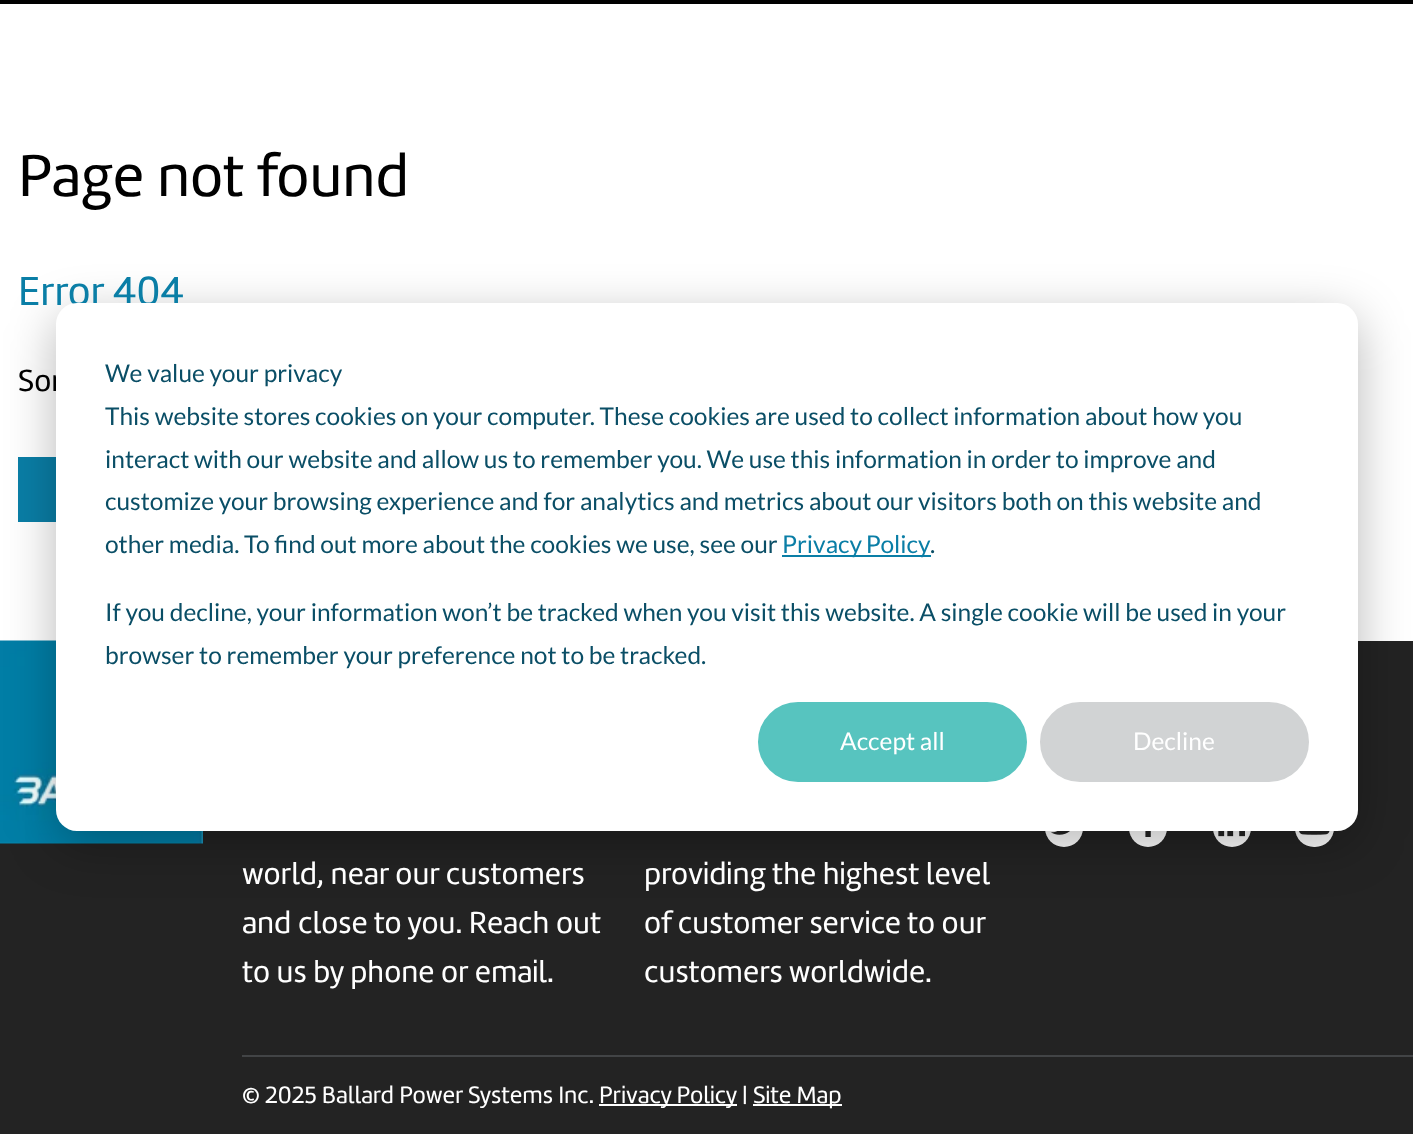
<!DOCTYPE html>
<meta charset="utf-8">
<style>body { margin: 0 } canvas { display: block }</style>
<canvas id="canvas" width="1413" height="1134"></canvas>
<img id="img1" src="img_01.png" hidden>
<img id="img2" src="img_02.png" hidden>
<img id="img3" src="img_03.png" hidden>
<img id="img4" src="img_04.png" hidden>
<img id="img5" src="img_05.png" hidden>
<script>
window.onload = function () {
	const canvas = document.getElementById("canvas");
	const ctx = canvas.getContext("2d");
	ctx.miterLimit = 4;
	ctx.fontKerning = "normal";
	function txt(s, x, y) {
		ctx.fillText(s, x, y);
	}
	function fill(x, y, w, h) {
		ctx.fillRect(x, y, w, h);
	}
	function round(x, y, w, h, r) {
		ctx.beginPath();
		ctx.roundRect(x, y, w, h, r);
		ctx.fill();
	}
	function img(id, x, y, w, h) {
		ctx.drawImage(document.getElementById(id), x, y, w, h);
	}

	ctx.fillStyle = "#FFFFFF";
	fill(0, 0, 1413, 1134);
	ctx.fillStyle = "#000000";
	fill(0, 0, 1413, 4);
	ctx.fillStyle = "#0A7EA6";
	fill(18, 457, 38, 65);
	ctx.fillStyle = "#232323";
	fill(0, 641, 1413, 493);
	img("img1", 0, 640, 203, 204);
	ctx.fillStyle = "#FFFFFF";
	ctx.beginPath();
	ctx.arc(1064, 828, 19, 0, Math.PI * 2);
	ctx.fill();
	img("img2", 1051, 831, 19, 4);
	ctx.beginPath();
	ctx.arc(1148, 828, 19, 0, Math.PI * 2);
	ctx.fill();
	img("img3", 1145, 831, 6, 6);
	ctx.beginPath();
	ctx.arc(1232, 828, 19, 0, Math.PI * 2);
	ctx.fill();
	img("img4", 1218, 831, 27, 6);
	round(1295, 809, 39, 38, 19);
	img("img5", 1299, 831, 31, 4);
	ctx.fillStyle = "rgba(0, 0, 0, 0.28)";
	ctx.filter = "blur(24.5px)";
	ctx.beginPath();
	ctx.roundRect(56, 317, 1302, 528, 21);
	ctx.fill();
	ctx.filter = "none";
	ctx.fillStyle = "#424446";
	fill(242, 1055, 1171, 2);
	ctx.fillStyle = "#FFFFFF";
	fill(599, 1104, 138, 2);
	fill(753, 1104, 89, 2);
	ctx.font = "61.25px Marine";
	ctx.fillStyle = "#000000";
	txt("Page not found", 18, 196);
	ctx.font = "42px Marine";
	ctx.fillStyle = "#0A7EA6";
	txt("Error 404", 18, 305);
	ctx.font = "31.5px Marine";
	ctx.fillStyle = "#000000";
	txt("Sor", 18, 391);
	ctx.fillStyle = "#FFFFFF";
	round(56, 303, 1302, 528, 21);
	ctx.font = "24.5px Lato";
	ctx.fillStyle = "#0A4E66";
	txt("We value your privacy", 105, 382);
	txt("This website stores cookies on your computer. These cookies are used to collect information about how you", 105, 425);
	txt("interact with our website and allow us to remember you. We use this information in order to improve and", 105, 468);
	txt("customize your browsing experience and for analytics and metrics about our visitors both on this website and", 105, 510);
	txt("other media. To find out more about the cookies we use, see our", 105, 553);
	ctx.fillStyle = "#0A7EA6";
	fill(782, 555, 149, 2);
	ctx.wordSpacing = "-1px";
	txt("Privacy Policy", 782, 553);
	ctx.wordSpacing = "0px";
	ctx.fillStyle = "#0A4E66";
	txt(".", 930, 553);
	txt("If you decline, your information won’t be tracked when you visit this website. A single cookie will be used in your", 105, 621);
	txt("browser to remember your preference not to be tracked.", 105, 664);
	ctx.fillStyle = "#57C4BF";
	ctx.beginPath();
	ctx.roundRect(759, 703, 267, 78, 39);
	ctx.fill();
	ctx.strokeStyle = "#57C4BF";
	ctx.lineWidth = 2;
	ctx.stroke();
	ctx.fillStyle = "#FFFFFF";
	txt("Accept all", 840, 750);
	ctx.fillStyle = "#D1D3D4";
	ctx.beginPath();
	ctx.roundRect(1041, 703, 267, 78, 39);
	ctx.fill();
	ctx.strokeStyle = "#D1D3D4";
	ctx.stroke();
	ctx.fillStyle = "#FFFFFF";
	txt("Decline", 1133, 750);
	ctx.font = "31.5px Marine";
	txt("world, near our customers", 242, 884);
	txt("and close to you. Reach out", 242, 933);
	txt("to us by phone or email.", 242, 982);
	txt("providing the highest level", 644, 884);
	txt("of customer service to our", 644, 933);
	txt("customers worldwide.", 644, 982);
	ctx.font = "24.5px Marine";
	txt("© 2025 Ballard Power Systems Inc.", 242, 1103);
	txt("Privacy Policy", 599, 1103);
	txt("|", 742, 1103);
	txt("Site Map", 753, 1103);
};
</script>
